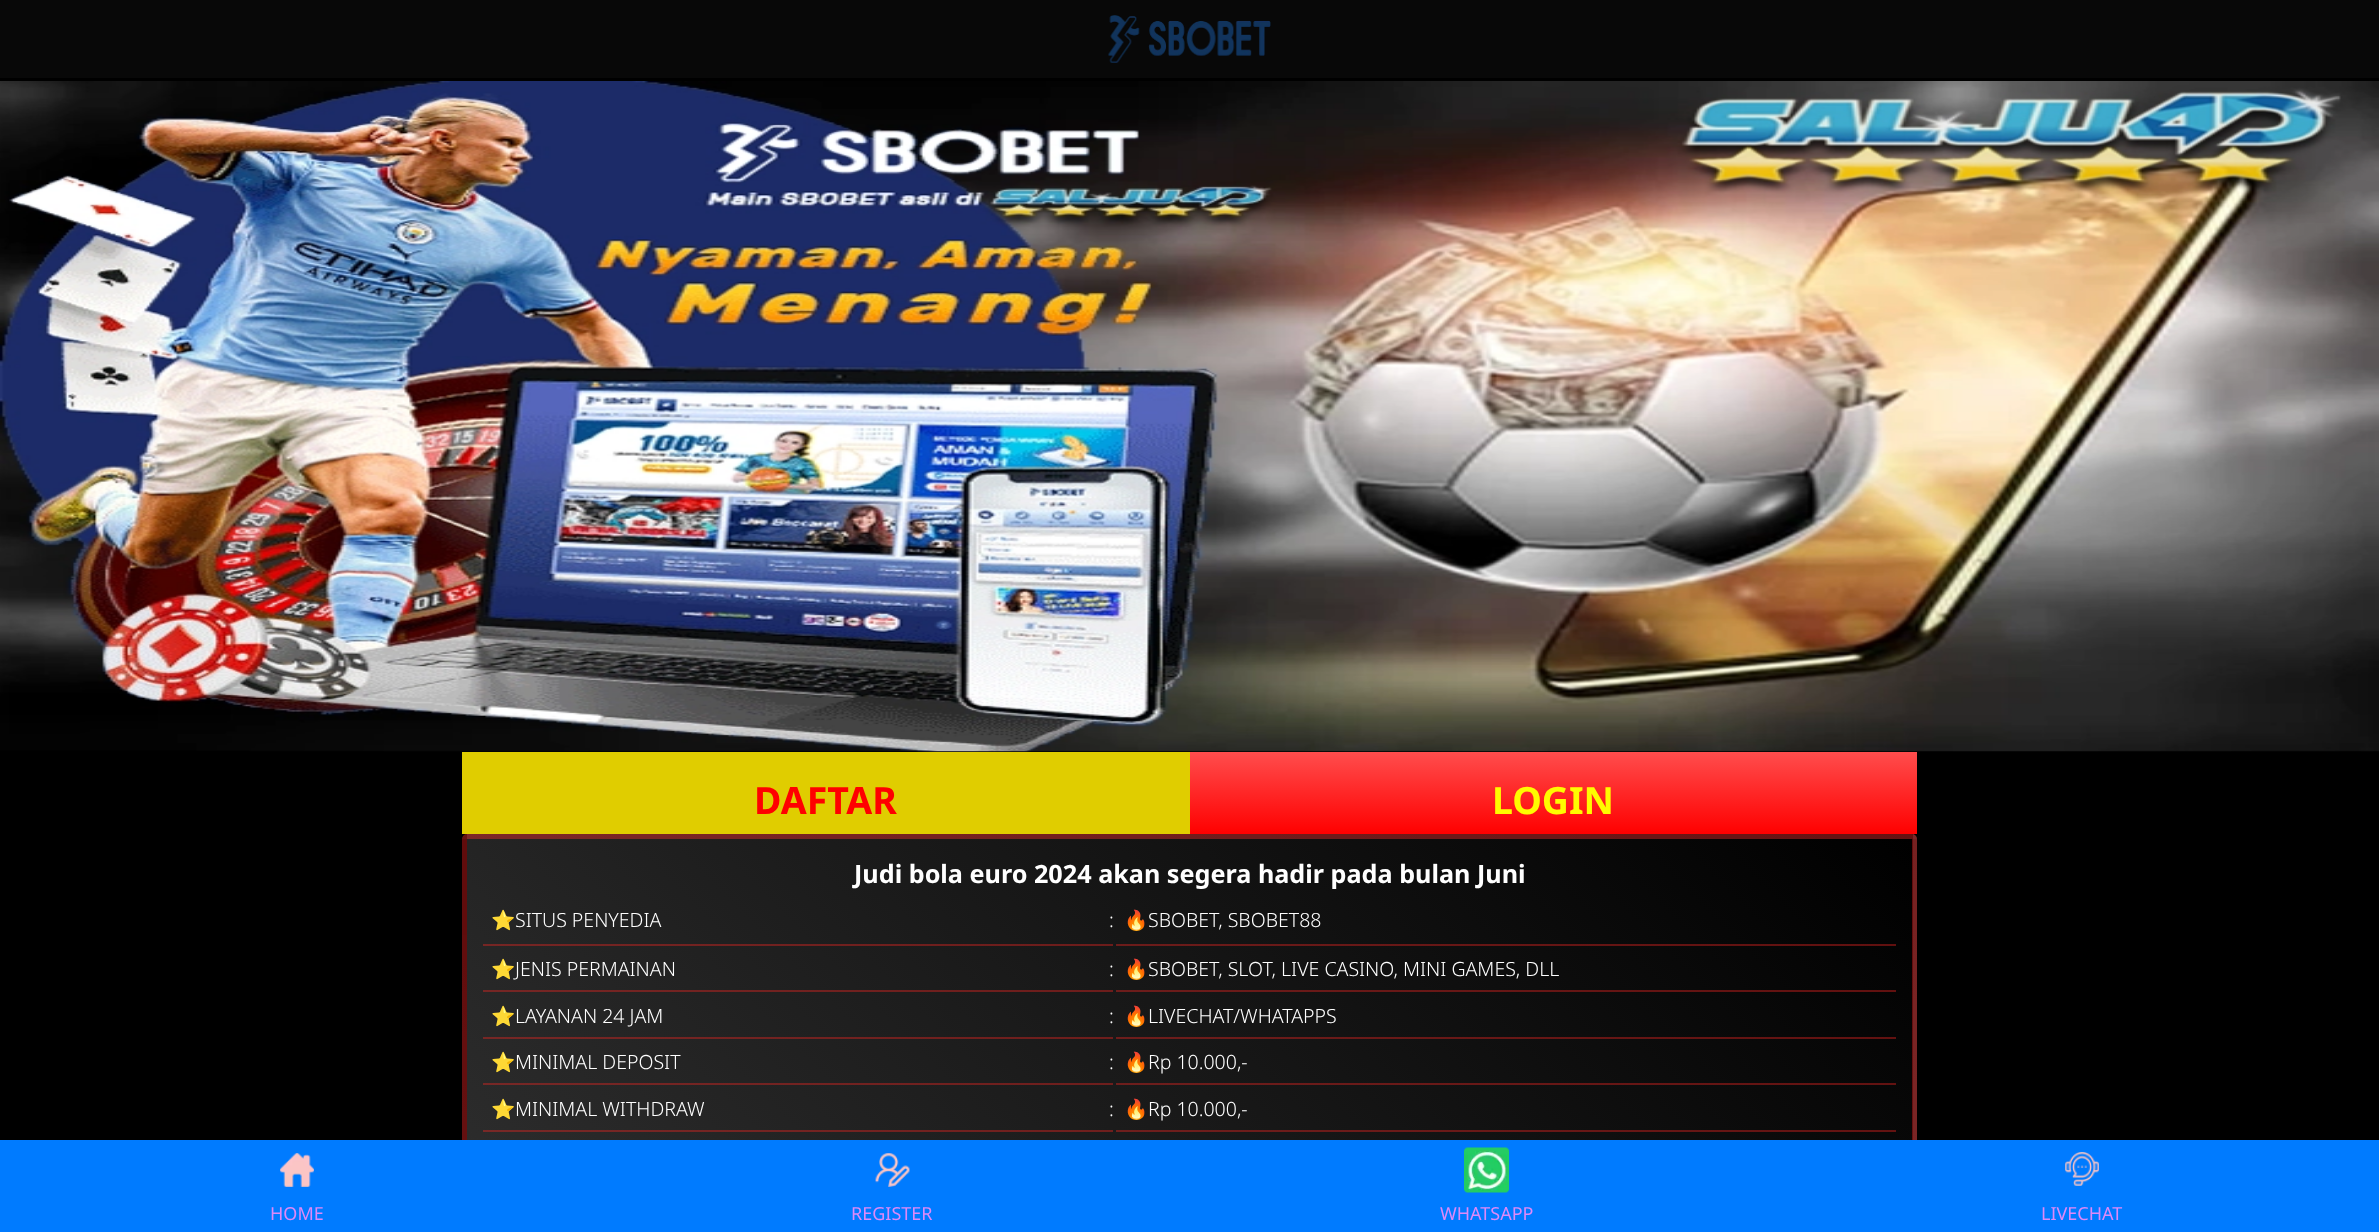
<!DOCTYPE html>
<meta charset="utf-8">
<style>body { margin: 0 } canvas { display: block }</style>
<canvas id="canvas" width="2379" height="1232"></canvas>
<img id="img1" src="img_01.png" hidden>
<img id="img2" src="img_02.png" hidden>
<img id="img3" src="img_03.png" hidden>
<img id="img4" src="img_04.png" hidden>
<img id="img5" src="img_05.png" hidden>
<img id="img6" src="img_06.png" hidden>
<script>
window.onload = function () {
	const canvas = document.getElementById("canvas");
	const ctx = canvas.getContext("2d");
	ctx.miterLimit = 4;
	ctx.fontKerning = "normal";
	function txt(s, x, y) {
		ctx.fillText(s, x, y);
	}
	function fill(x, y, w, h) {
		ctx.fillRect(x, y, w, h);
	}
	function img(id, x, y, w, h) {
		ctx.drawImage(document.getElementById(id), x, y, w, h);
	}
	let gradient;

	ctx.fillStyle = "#000000";
	fill(0, 0, 2379, 1232);
	ctx.fillStyle = "#080808";
	fill(0, 0, 2379, 78);
	img("img1", 1108, 15, 163, 48);
	img("img2", 0, 81, 2379, 671);
	ctx.fillStyle = "#E0CD00";
	fill(462, 752, 728, 82);
	gradient = ctx.createLinearGradient(1553, 752, 1553, 834);
	gradient.addColorStop(0, "#FF4D4D");
	gradient.addColorStop(1, "#FF0000");
	ctx.fillStyle = gradient;
	fill(1190, 752, 727, 82);
	gradient = ctx.createLinearGradient(-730, 1088, 217, 142);
	gradient.addColorStop(0, "#2F2F2F");
	gradient.addColorStop(1, "#000000");
	ctx.fillStyle = gradient;
	ctx.beginPath();
	ctx.roundRect(462, 834, 5, 5, [5, 0, 0, 0]);
	ctx.fill();
	gradient = ctx.createLinearGradient(716, 1088, 1663, 142);
	gradient.addColorStop(0, "#2F2F2F");
	gradient.addColorStop(1, "#000000");
	ctx.fillStyle = gradient;
	fill(467, 834, 1446, 5);
	ctx.save();
	ctx.beginPath();
	ctx.roundRect(462, 834, 1455, 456, 5);
	ctx.clip();
	gradient = ctx.createLinearGradient(2162, 1088, 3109, 142);
	gradient.addColorStop(0, "#2F2F2F");
	gradient.addColorStop(1, "#000000");
	ctx.fillStyle = gradient;
	fill(1913, 834, 4, 5);
	ctx.restore();
	gradient = ctx.createLinearGradient(-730, 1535, 217, 589);
	gradient.addColorStop(0, "#2F2F2F");
	gradient.addColorStop(1, "#000000");
	ctx.fillStyle = gradient;
	fill(462, 935, 5, 205);
	gradient = ctx.createLinearGradient(716, 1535, 1663, 589);
	gradient.addColorStop(0, "#2F2F2F");
	gradient.addColorStop(1, "#000000");
	ctx.fillStyle = gradient;
	fill(467, 839, 1446, 301);
	gradient = ctx.createLinearGradient(716, 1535, 1663, 589);
	gradient.addColorStop(0, "#7B2B29");
	gradient.addColorStop(1, "#5F0E0D");
	ctx.fillStyle = gradient;
	fill(1116, 1130, 780, 2);
	fill(483, 1130, 630, 2);
	fill(1116, 1083, 780, 2);
	fill(483, 1083, 630, 2);
	fill(1116, 1037, 780, 2);
	fill(483, 1037, 630, 2);
	fill(1116, 990, 780, 2);
	fill(483, 990, 630, 2);
	fill(1116, 944, 780, 2);
	fill(483, 944, 630, 2);
	gradient = ctx.createLinearGradient(2162, 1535, 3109, 589);
	gradient.addColorStop(0, "#2F2F2F");
	gradient.addColorStop(1, "#000000");
	ctx.fillStyle = gradient;
	fill(1913, 839, 4, 301);
	ctx.beginPath();
	ctx.roundRect(464.5, 836.5, 1450, 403, 2.5);
	ctx.strokeStyle = "rgba(243, 30, 30, 0.4)";
	ctx.lineWidth = 5;
	ctx.stroke();
	ctx.fillStyle = "#007BFF";
	fill(0, 1140, 2379, 92);
	img("img3", 280, 1153, 34, 34);
	img("img4", 875, 1153, 35, 34);
	img("img5", 1464, 1147, 45, 46);
	img("img6", 2065, 1152, 34, 34);
	ctx.font = "bold 37.5px Noto Sans";
	ctx.fillStyle = "#FF0000";
	txt("DAFTAR", 754, 814);
	ctx.fillStyle = "#FFFB00";
	txt("LOGIN", 1492, 814);
	ctx.font = "bold 25.2px Noto Sans";
	ctx.fillStyle = "#FFFFFF";
	txt("Judi bola euro 2024 akan segera hadir pada bulan Juni", 854, 883);
	ctx.font = "19.5px Noto Color Emoji";
	txt("⭐", 491, 927);
	ctx.font = "300 19.5px Noto Sans";
	txt("SITUS PENYEDIA", 515, 927);
	txt(":", 1109, 927);
	ctx.font = "19.5px Noto Color Emoji";
	txt("🔥", 1124, 927);
	ctx.font = "300 19.5px Noto Sans";
	txt("SBOBET, SBOBET88", 1148, 927);
	ctx.font = "19.5px Noto Color Emoji";
	txt("⭐", 491, 976);
	ctx.font = "300 19.5px Noto Sans";
	txt("JENIS PERMAINAN", 515, 976);
	txt(":", 1109, 976);
	ctx.font = "19.5px Noto Color Emoji";
	txt("🔥", 1124, 976);
	ctx.font = "300 19.5px Noto Sans";
	txt("SBOBET, SLOT, LIVE CASINO, MINI GAMES, DLL", 1148, 976);
	ctx.font = "19.5px Noto Color Emoji";
	txt("⭐", 491, 1023);
	ctx.font = "300 19.5px Noto Sans";
	txt("LAYANAN 24 JAM", 515, 1023);
	txt(":", 1109, 1023);
	ctx.font = "19.5px Noto Color Emoji";
	txt("🔥", 1124, 1023);
	ctx.font = "300 19.5px Noto Sans";
	txt("LIVECHAT/WHATAPPS", 1148, 1023);
	ctx.font = "19.5px Noto Color Emoji";
	txt("⭐", 491, 1069);
	ctx.font = "300 19.5px Noto Sans";
	txt("MINIMAL DEPOSIT", 515, 1069);
	txt(":", 1109, 1069);
	ctx.font = "19.5px Noto Color Emoji";
	txt("🔥", 1124, 1069);
	ctx.font = "300 19.5px Noto Sans";
	txt("Rp 10.000,-", 1148, 1069);
	ctx.font = "19.5px Noto Color Emoji";
	txt("⭐", 491, 1116);
	ctx.font = "300 19.5px Noto Sans";
	txt("MINIMAL WITHDRAW", 515, 1116);
	txt(":", 1109, 1116);
	ctx.font = "19.5px Noto Color Emoji";
	txt("🔥", 1124, 1116);
	ctx.font = "300 19.5px Noto Sans";
	txt("Rp 10.000,-", 1148, 1116);
	ctx.font = "18px Noto Sans";
	ctx.fillStyle = "#DE89F8";
	txt("HOME", 270, 1220);
	txt("REGISTER", 851, 1220);
	txt("WHATSAPP", 1440, 1220);
	txt("LIVECHAT", 2041, 1220);
};
</script>
